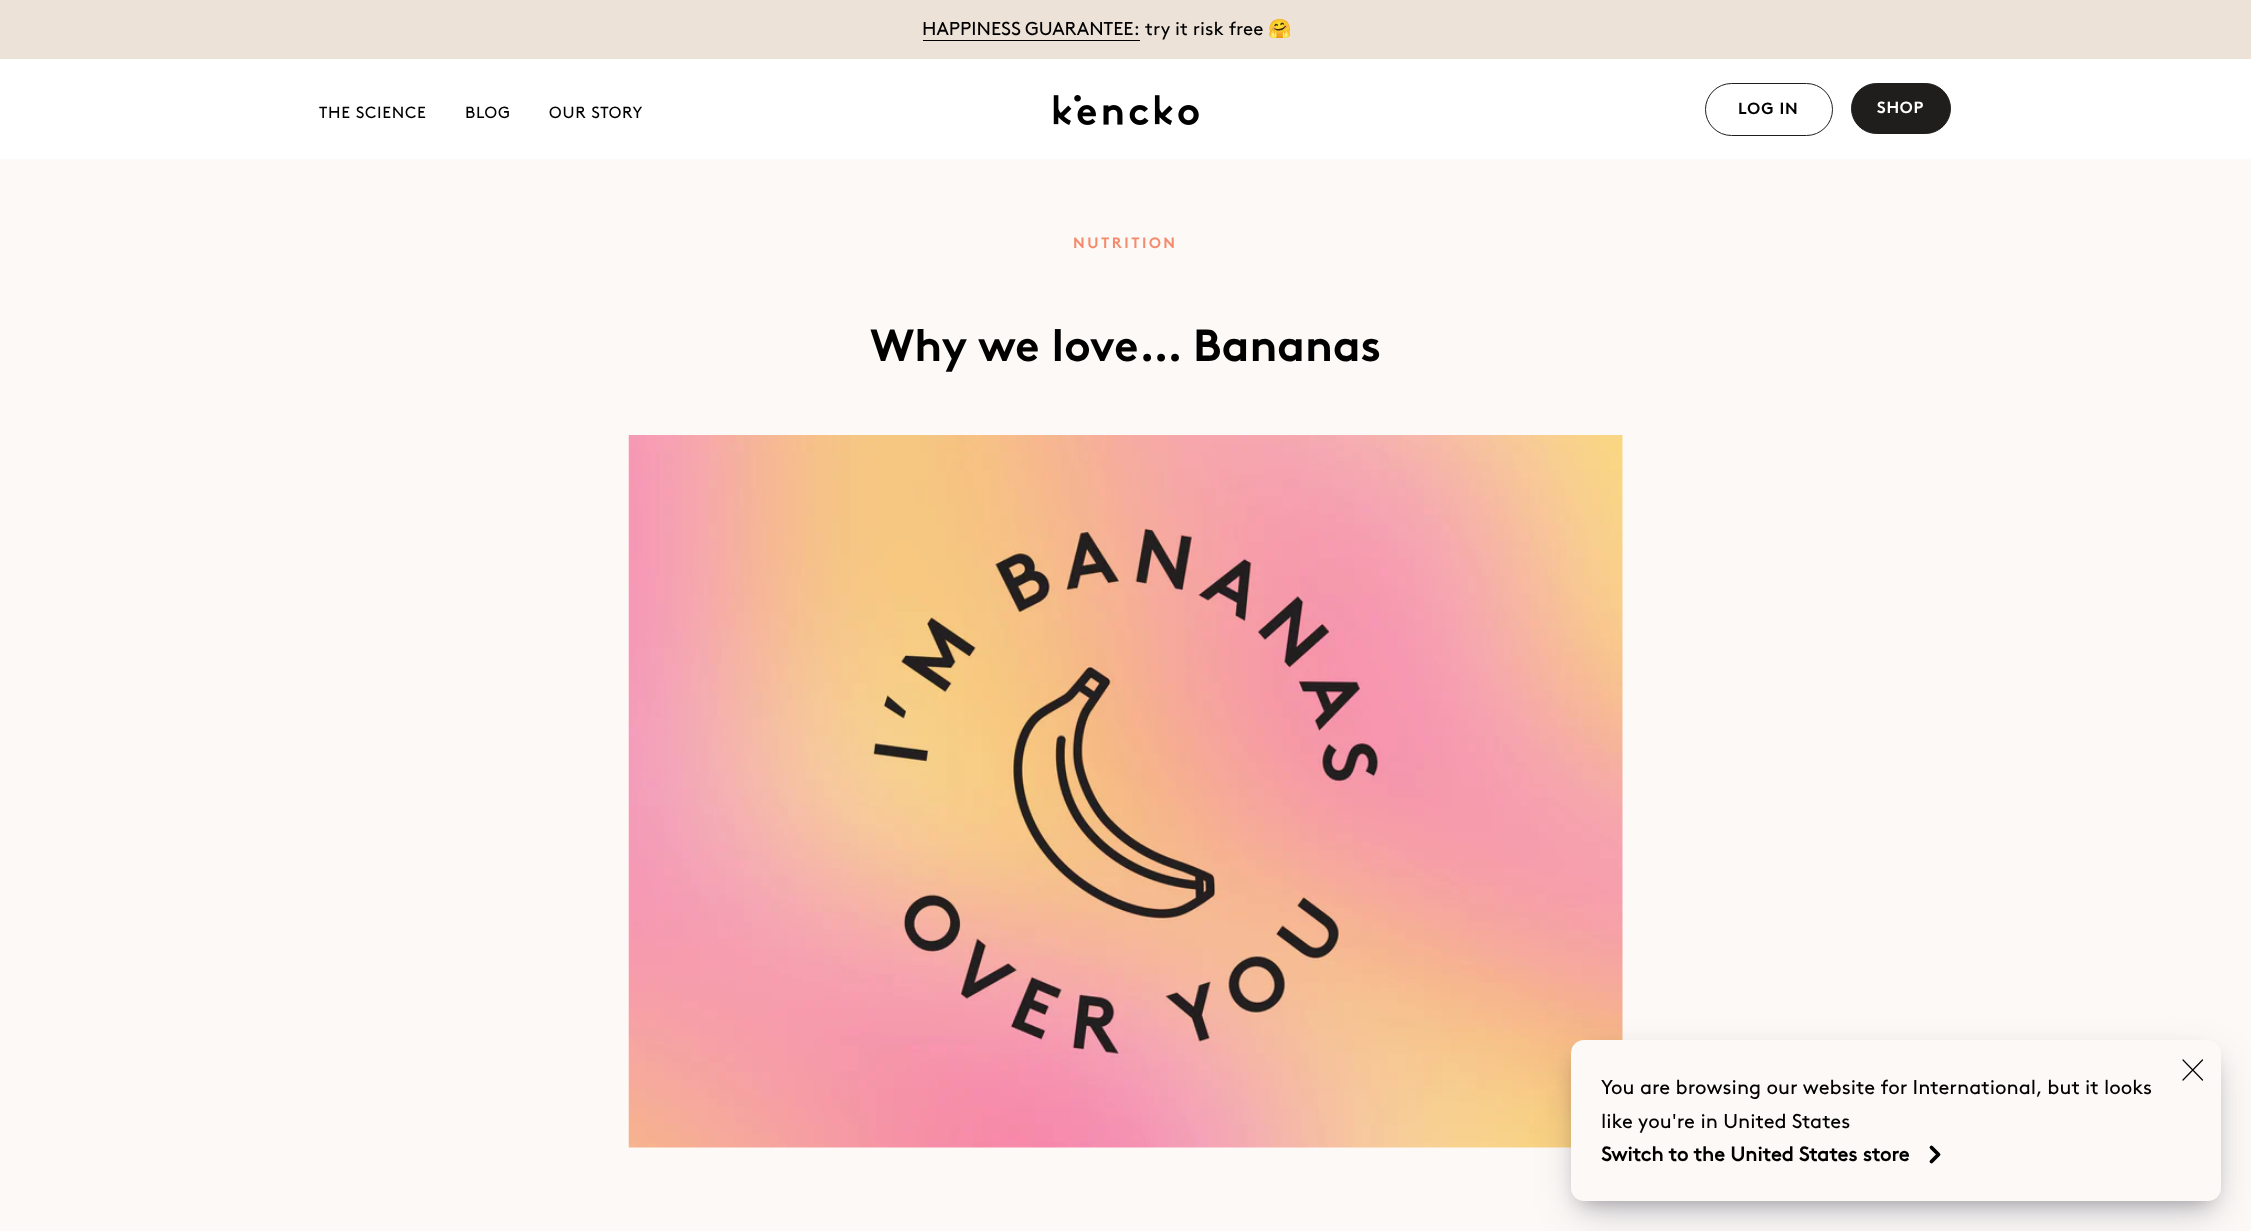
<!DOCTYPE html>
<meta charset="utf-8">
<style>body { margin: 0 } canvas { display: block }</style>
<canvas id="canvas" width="2251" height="1231"></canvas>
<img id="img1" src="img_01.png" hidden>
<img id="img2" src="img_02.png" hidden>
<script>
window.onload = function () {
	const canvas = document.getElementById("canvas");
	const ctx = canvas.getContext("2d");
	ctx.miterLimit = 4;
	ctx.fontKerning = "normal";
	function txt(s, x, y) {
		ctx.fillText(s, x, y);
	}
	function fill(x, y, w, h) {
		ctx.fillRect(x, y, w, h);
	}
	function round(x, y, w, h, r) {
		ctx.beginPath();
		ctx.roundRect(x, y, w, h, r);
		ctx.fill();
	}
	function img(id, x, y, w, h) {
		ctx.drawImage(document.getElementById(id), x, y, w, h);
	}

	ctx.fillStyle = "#FCF9F6";
	fill(0, 0, 2251, 1231);
	ctx.fillStyle = "#EDE2D8";
	fill(0, 0, 2251, 59);
	ctx.fillStyle = "#000000";
	fill(923, 40, 217, 1);
	ctx.fillStyle = "#FFFFFF";
	fill(0, 59, 2251, 100);
	img("img1", 1053, 95, 146, 30);
	ctx.beginPath();
	ctx.roundRect(1705.5, 83.5, 127, 52, 26);
	ctx.strokeStyle = "#1F1E1C";
	ctx.stroke();
	ctx.fillStyle = "#1F1E1C";
	ctx.beginPath();
	ctx.roundRect(1851.5, 83.5, 99, 50, 25);
	ctx.fill();
	ctx.stroke();
	img("img2", 628, 435, 995, 713);
	ctx.fillStyle = "rgba(0, 0, 0, 0.3)";
	ctx.filter = "blur(10px)";
	ctx.beginPath();
	ctx.roundRect(1581, 1060, 630, 141, 2.5);
	ctx.fill();
	ctx.filter = "none";
	ctx.fillStyle = "rgba(50, 50, 93, 0.25)";
	ctx.filter = "blur(20px)";
	ctx.beginPath();
	ctx.roundRect(1578, 1061, 637, 149, 6);
	ctx.fill();
	ctx.filter = "none";
	ctx.fillStyle = "#FCF9F6";
	round(1571, 1040, 650, 161, 13);
	ctx.beginPath();
	ctx.moveTo(2202.5, 1060);
	ctx.lineTo(2183, 1080);
	ctx.moveTo(2202.5, 1080);
	ctx.lineTo(2183, 1060);
	ctx.strokeStyle = "#000000";
	ctx.lineWidth = 1.2;
	ctx.lineCap = "round";
	ctx.lineJoin = "round";
	ctx.stroke();
	ctx.beginPath();
	ctx.moveTo(1931.5, 1147.5);
	ctx.lineTo(1938.5, 1154.5);
	ctx.lineTo(1931.5, 1161.5);
	ctx.lineWidth = 3.8;
	ctx.stroke();
	ctx.wordSpacing = "-1px";
	ctx.font = "18.75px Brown";
	ctx.fillStyle = "#000000";
	txt("HAPPINESS GUARANTEE:", 922, 35);
	ctx.wordSpacing = "0px";
	txt("try it risk free", 1145, 35);
	ctx.font = "18.75px Noto Color Emoji";
	txt("🤗", 1268, 35);
	ctx.letterSpacing = "0.75px";
	ctx.font = "16.25px Brown";
	txt("THE SCIENCE", 319, 118);
	txt("BLOG", 465, 118);
	txt("OUR STORY", 549, 118);
	ctx.font = "bold 16.25px Brown";
	txt("LOG IN", 1738, 114);
	ctx.fillStyle = "#FFFFFF";
	txt("SHOP", 1877, 113);
	ctx.letterSpacing = "2.5px";
	ctx.font = "bold 15px Brown";
	ctx.fillStyle = "#F58B6E";
	txt("NUTRITION", 1073, 248);
	ctx.letterSpacing = "0px";
	ctx.font = "bold 45px Brown";
	ctx.fillStyle = "#000000";
	txt("Why we love… Bananas", 870, 361);
	ctx.font = "20px Brown";
	txt("You are browsing our website for International, but it looks", 1601, 1094);
	txt("like you're in United States", 1601, 1128);
	ctx.font = "bold 20px 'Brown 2'";
	txt("Switch to the United States store", 1601, 1161);
};
</script>
